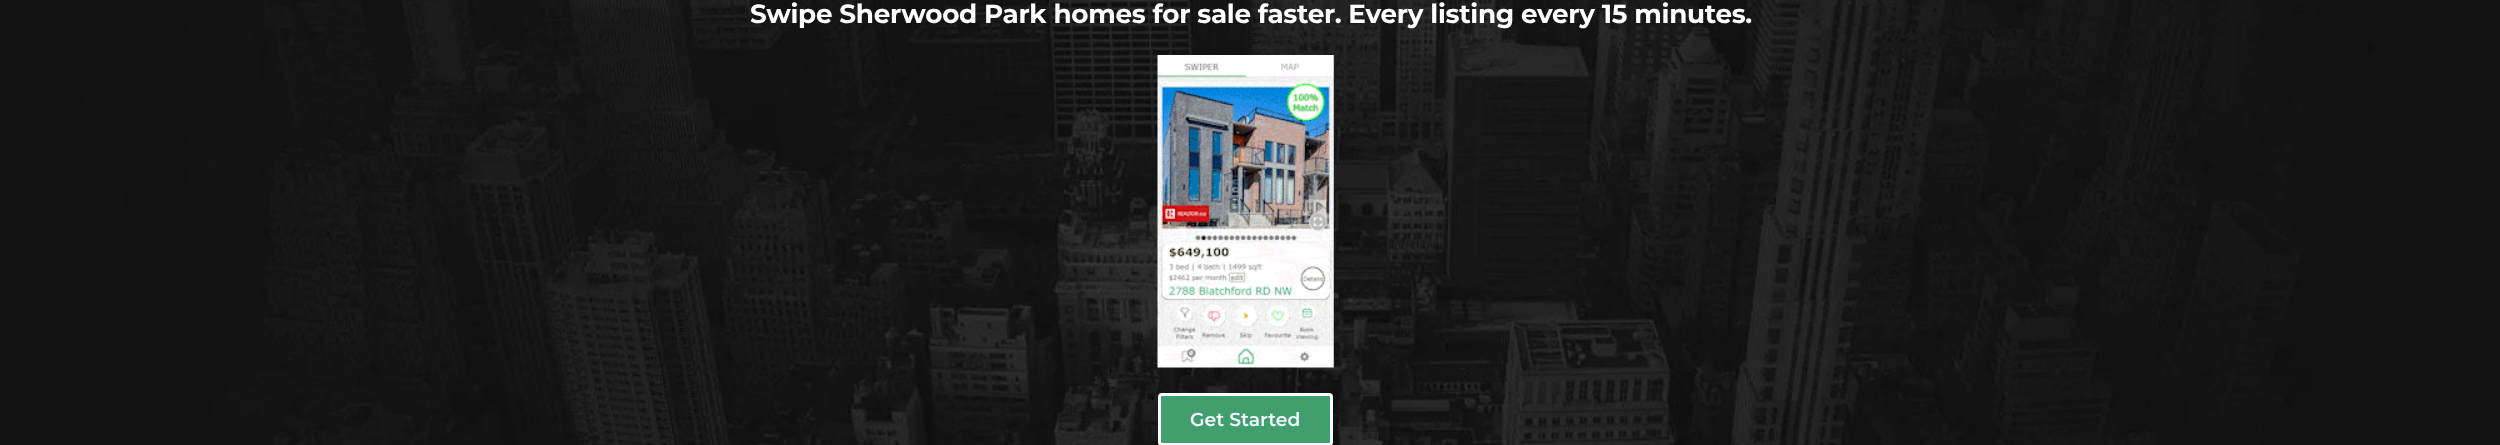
<!DOCTYPE html>
<meta charset="utf-8">
<style>body { margin: 0 } canvas { display: block }</style>
<canvas id="canvas" width="2500" height="445"></canvas>
<img id="img1" src="img_01.png" hidden>
<img id="img2" src="img_02.png" hidden>
<script>
window.onload = function () {
	const canvas = document.getElementById("canvas");
	const ctx = canvas.getContext("2d");
	ctx.miterLimit = 4;
	ctx.fontKerning = "normal";
	function txt(s, x, y) {
		ctx.fillText(s, x, y);
	}
	function fill(x, y, w, h) {
		ctx.fillRect(x, y, w, h);
	}
	function img(id, x, y, w, h) {
		ctx.drawImage(document.getElementById(id), x, y, w, h);
	}

	ctx.fillStyle = "#FFFFFF";
	fill(0, 0, 2500, 445);
	img("img1", 0, 0, 2500, 445);
	img("img2", 1157, 55, 177, 313);
	ctx.fillStyle = "#419F6E";
	ctx.beginPath();
	ctx.roundRect(1159.5, 394.5, 172, 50, 2.5);
	ctx.fill();
	ctx.strokeStyle = "#FFFFFF";
	ctx.lineWidth = 3;
	ctx.stroke();
	ctx.letterSpacing = "-0.3px";
	ctx.font = "bold 26.25px Montserrat";
	ctx.fillStyle = "#FFFFFF";
	txt("Swipe Sherwood Park homes for sale faster. Every listing every 15 minutes.", 750, 23);
	ctx.letterSpacing = "0px";
	ctx.font = "600 18.75px Montserrat";
	ctx.fillStyle = "#F3F9FF";
	txt("Get Started", 1190, 426);
};
</script>
